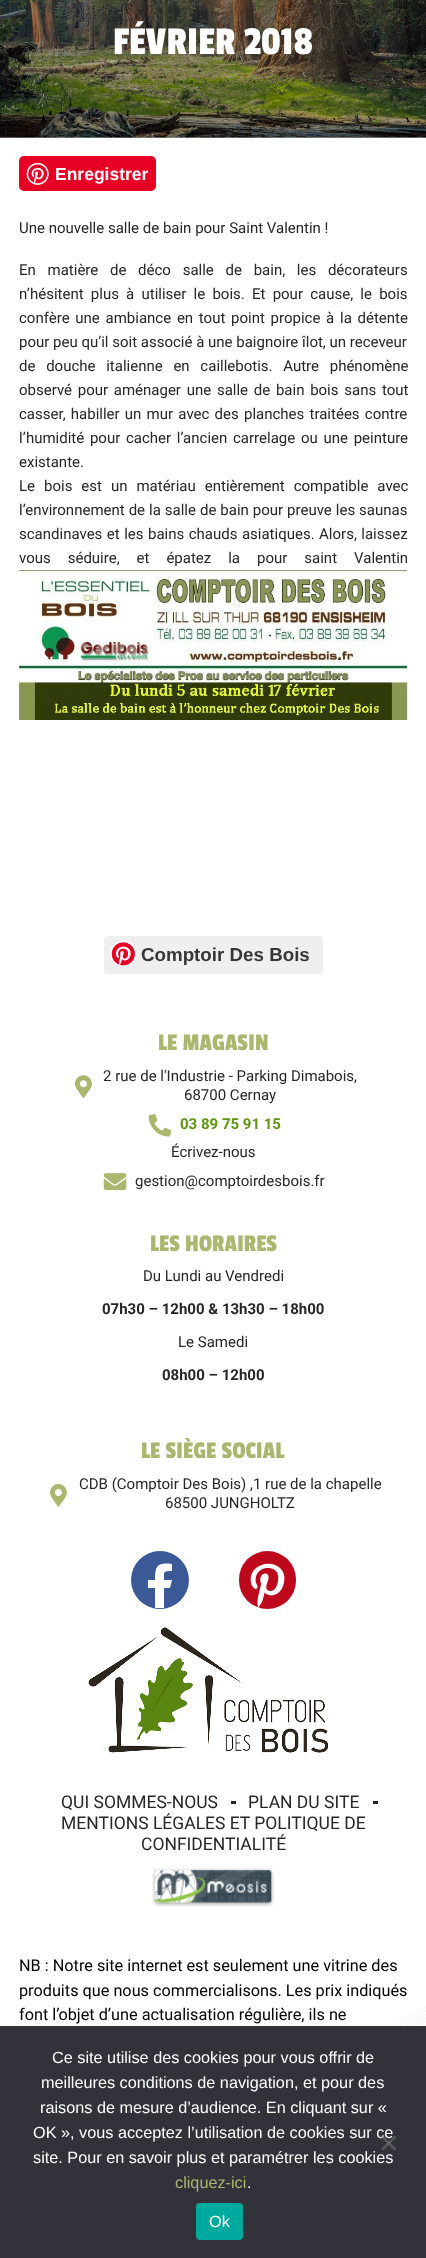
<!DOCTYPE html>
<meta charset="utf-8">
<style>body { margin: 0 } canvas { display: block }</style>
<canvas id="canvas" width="426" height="2258"></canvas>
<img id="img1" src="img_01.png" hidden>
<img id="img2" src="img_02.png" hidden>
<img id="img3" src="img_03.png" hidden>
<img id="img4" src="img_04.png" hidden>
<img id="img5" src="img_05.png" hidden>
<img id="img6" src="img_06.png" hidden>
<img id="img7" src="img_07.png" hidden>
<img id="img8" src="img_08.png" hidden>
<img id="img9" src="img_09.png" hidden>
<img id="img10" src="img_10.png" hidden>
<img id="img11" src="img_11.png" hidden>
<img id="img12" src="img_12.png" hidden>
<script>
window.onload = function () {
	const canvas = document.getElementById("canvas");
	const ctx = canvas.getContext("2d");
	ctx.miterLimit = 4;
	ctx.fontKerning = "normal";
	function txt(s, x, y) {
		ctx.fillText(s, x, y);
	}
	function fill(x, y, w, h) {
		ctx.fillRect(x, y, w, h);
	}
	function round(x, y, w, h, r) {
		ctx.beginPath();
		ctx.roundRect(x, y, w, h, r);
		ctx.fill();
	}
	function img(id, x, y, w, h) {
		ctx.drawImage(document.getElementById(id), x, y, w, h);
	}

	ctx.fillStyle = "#FFFFFF";
	fill(0, 0, 426, 2258);
	ctx.fillStyle = "#A6A6A6";
	fill(0, 137, 426, 1);
	img("img1", 0, 0, 426, 138);
	ctx.fillStyle = "#E60023";
	round(19, 156, 137, 35, 5);
	img("img2", 26, 163, 23, 22);
	img("img3", 18, 570, 390, 150);
	ctx.fillStyle = "#EFEFEF";
	round(104, 936, 219, 38, 4);
	img("img4", 110, 940, 27, 28);
	img("img5", 75, 1075, 17, 23);
	img("img6", 148, 1114, 24, 23);
	img("img7", 103, 1173, 24, 17);
	img("img8", 50, 1484, 17, 23);
	ctx.fillStyle = "#3B5997";
	ctx.beginPath();
	ctx.arc(160, 1580, 29, 0, Math.PI * 2);
	ctx.fill();
	ctx.fillStyle = "#FFFFFF";
	ctx.beginPath();
	ctx.moveTo(170, 1588);
	ctx.lineTo(164, 1588);
	ctx.lineTo(164, 1608);
	ctx.lineTo(155, 1608);
	ctx.lineTo(155, 1588);
	ctx.lineTo(148, 1588);
	ctx.lineTo(148, 1580);
	ctx.lineTo(155, 1580);
	ctx.bezierCurveTo(155, 1566, 157, 1562, 172, 1564);
	ctx.lineTo(172, 1571);
	ctx.bezierCurveTo(163, 1571, 164, 1572, 164, 1580);
	ctx.lineTo(172, 1580);
	ctx.closePath();
	ctx.fill();
	ctx.fillStyle = "#BD071D";
	round(239, 1551, 57, 58, 28.5);
	img("img9", 250, 1563, 35, 45);
	img("img10", 88, 1627, 240, 126);
	ctx.fillStyle = "#272727";
	fill(231, 1801, 5, 3);
	fill(373, 1801, 5, 3);
	img("img11", 152, 1868, 123, 39);
	img("img12", 394, 2007, 32, 19);
	ctx.fillStyle = "#32323A";
	fill(0, 2026, 426, 232);
	ctx.fillStyle = "#00A99D";
	round(196, 2203, 47, 37, 4);
	ctx.font = "41.25px Passion One";
	ctx.fillStyle = "#FFFFFF";
	txt("FÉVRIER 2018", 113, 54);
	ctx.font = "bold 17.5px Liberation Sans";
	txt("Enregistrer", 55, 180);
	ctx.font = "15px Roboto";
	ctx.fillStyle = "#272727";
	txt("Une nouvelle salle de bain pour Saint Valentin !", 19, 233);
	ctx.wordSpacing = "8px";
	txt("En matière de déco salle de bain, les décorateurs", 19, 275);
	ctx.wordSpacing = "3.5px";
	txt("n’hésitent plus à utiliser le bois. Et pour cause, le bois", 19, 299);
	ctx.wordSpacing = "2px";
	txt("confère une ambiance en tout point propice à la détente", 19, 323);
	ctx.wordSpacing = "0px";
	txt("pour peu qu’il soit associé à une baignoire îlot, un receveur", 19, 347);
	ctx.wordSpacing = "7px";
	txt("de douche italienne en caillebotis. Autre phénomène", 19, 371);
	ctx.wordSpacing = "2px";
	txt("observé pour aménager une salle de bain bois sans tout", 19, 395);
	ctx.wordSpacing = "1.5px";
	txt("casser, habiller un mur avec des planches traitées contre", 19, 419);
	ctx.wordSpacing = "2px";
	txt("l’humidité pour cacher l’ancien carrelage ou une peinture", 19, 443);
	ctx.wordSpacing = "0px";
	txt("existante.", 19, 467);
	ctx.wordSpacing = "5.25px";
	txt("Le bois est un matériau entièrement compatible avec", 19, 491);
	ctx.wordSpacing = "0.25px";
	txt("l’environnement de la salle de bain pour preuve les saunas", 19, 515);
	ctx.wordSpacing = "0.75px";
	txt("scandinaves et les bains chauds asiatiques. Alors, laissez", 19, 539);
	ctx.wordSpacing = "13.25px";
	txt("vous séduire, et épatez la pour saint Valentin", 19, 563);
	ctx.wordSpacing = "0px";
	ctx.font = "bold 18.75px Liberation Sans";
	ctx.fillStyle = "#363636";
	txt("Comptoir Des Bois", 141, 961);
	ctx.font = "25px Passion One";
	ctx.fillStyle = "#ABB76E";
	txt("LE MAGASIN", 158, 1050);
	ctx.font = "15px Roboto";
	ctx.fillStyle = "#272727";
	txt("2 rue de l'Industrie - Parking Dimabois,", 103, 1081);
	txt("68700 Cernay", 184, 1100);
	ctx.font = "bold 15px Roboto";
	ctx.fillStyle = "#5D9611";
	txt("03 89 75 91 15", 180, 1129);
	ctx.font = "15px Roboto";
	ctx.fillStyle = "#272727";
	txt("Écrivez-nous", 171, 1157);
	txt("gestion@comptoirdesbois.fr", 135, 1186);
	ctx.font = "25px Passion One";
	ctx.fillStyle = "#ABB76E";
	txt("LES HORAIRES", 150, 1251);
	ctx.font = "15px Roboto";
	ctx.fillStyle = "#272727";
	txt("Du Lundi au Vendredi", 143, 1281);
	ctx.font = "bold 15px Roboto";
	txt("07h30 – 12h00 & 13h30 – 18h00", 102, 1314);
	ctx.font = "15px Roboto";
	txt("Le Samedi", 178, 1347);
	ctx.font = "bold 15px Roboto";
	txt("08h00 – 12h00", 162, 1380);
	ctx.font = "25px Passion One";
	ctx.fillStyle = "#ABB76E";
	txt("LE SIÈGE SOCIAL", 141, 1458);
	ctx.font = "15px Roboto";
	ctx.fillStyle = "#272727";
	txt("CDB (Comptoir Des Bois) ,1 rue de la chapelle", 79, 1489);
	txt("68500 JUNGHOLTZ", 165, 1508);
	ctx.font = "17.5px Roboto";
	txt("QUI SOMMES-NOUS", 61, 1808);
	txt("PLAN DU SITE", 248, 1808);
	txt("MENTIONS LÉGALES ET POLITIQUE DE", 61, 1829);
	txt("CONFIDENTIALITÉ", 141, 1850);
	ctx.font = "16.25px Roboto";
	ctx.fillStyle = "#000000";
	txt("NB : Notre site internet est seulement une vitrine des", 19, 1971);
	txt("produits que nous commercialisons. Les prix indiqués", 19, 1996);
	txt("font l’objet d’une actualisation régulière, ils ne", 19, 2020);
	ctx.font = "16.25px Liberation Sans";
	ctx.fillStyle = "#FFFFFF";
	txt("Ce site utilise des cookies pour vous offrir de", 52, 2063);
	txt("meilleures conditions de navigation, et pour des", 41, 2088);
	txt("raisons de mesure d’audience. En cliquant sur «", 40, 2113);
	txt("OK », vous acceptez l’utilisation de cookies sur ce", 33, 2138);
	txt("site. Pour en savoir plus et paramétrer les cookies", 33, 2163);
	ctx.fillStyle = "#ABB76E";
	txt("cliquez-ici", 175, 2188);
	ctx.fillStyle = "#FFFFFF";
	txt(".", 247, 2188);
	ctx.fillStyle = "#59595D";
	ctx.beginPath();
	ctx.moveTo(394.5, 2135.5);
	ctx.lineTo(396.5, 2137.5);
	ctx.lineTo(383, 2150.5);
	ctx.lineTo(381, 2149);
	ctx.closePath();
	ctx.fill();
	ctx.fillStyle = "rgba(128, 128, 128, 0.5)";
	ctx.beginPath();
	ctx.moveTo(381, 2137.5);
	ctx.lineTo(383, 2135.5);
	ctx.lineTo(396.5, 2149);
	ctx.lineTo(394.5, 2150.5);
	ctx.closePath();
	ctx.fill();
	ctx.fillStyle = "#FFFFFF";
	txt("Ok", 209, 2227);
};
</script>
